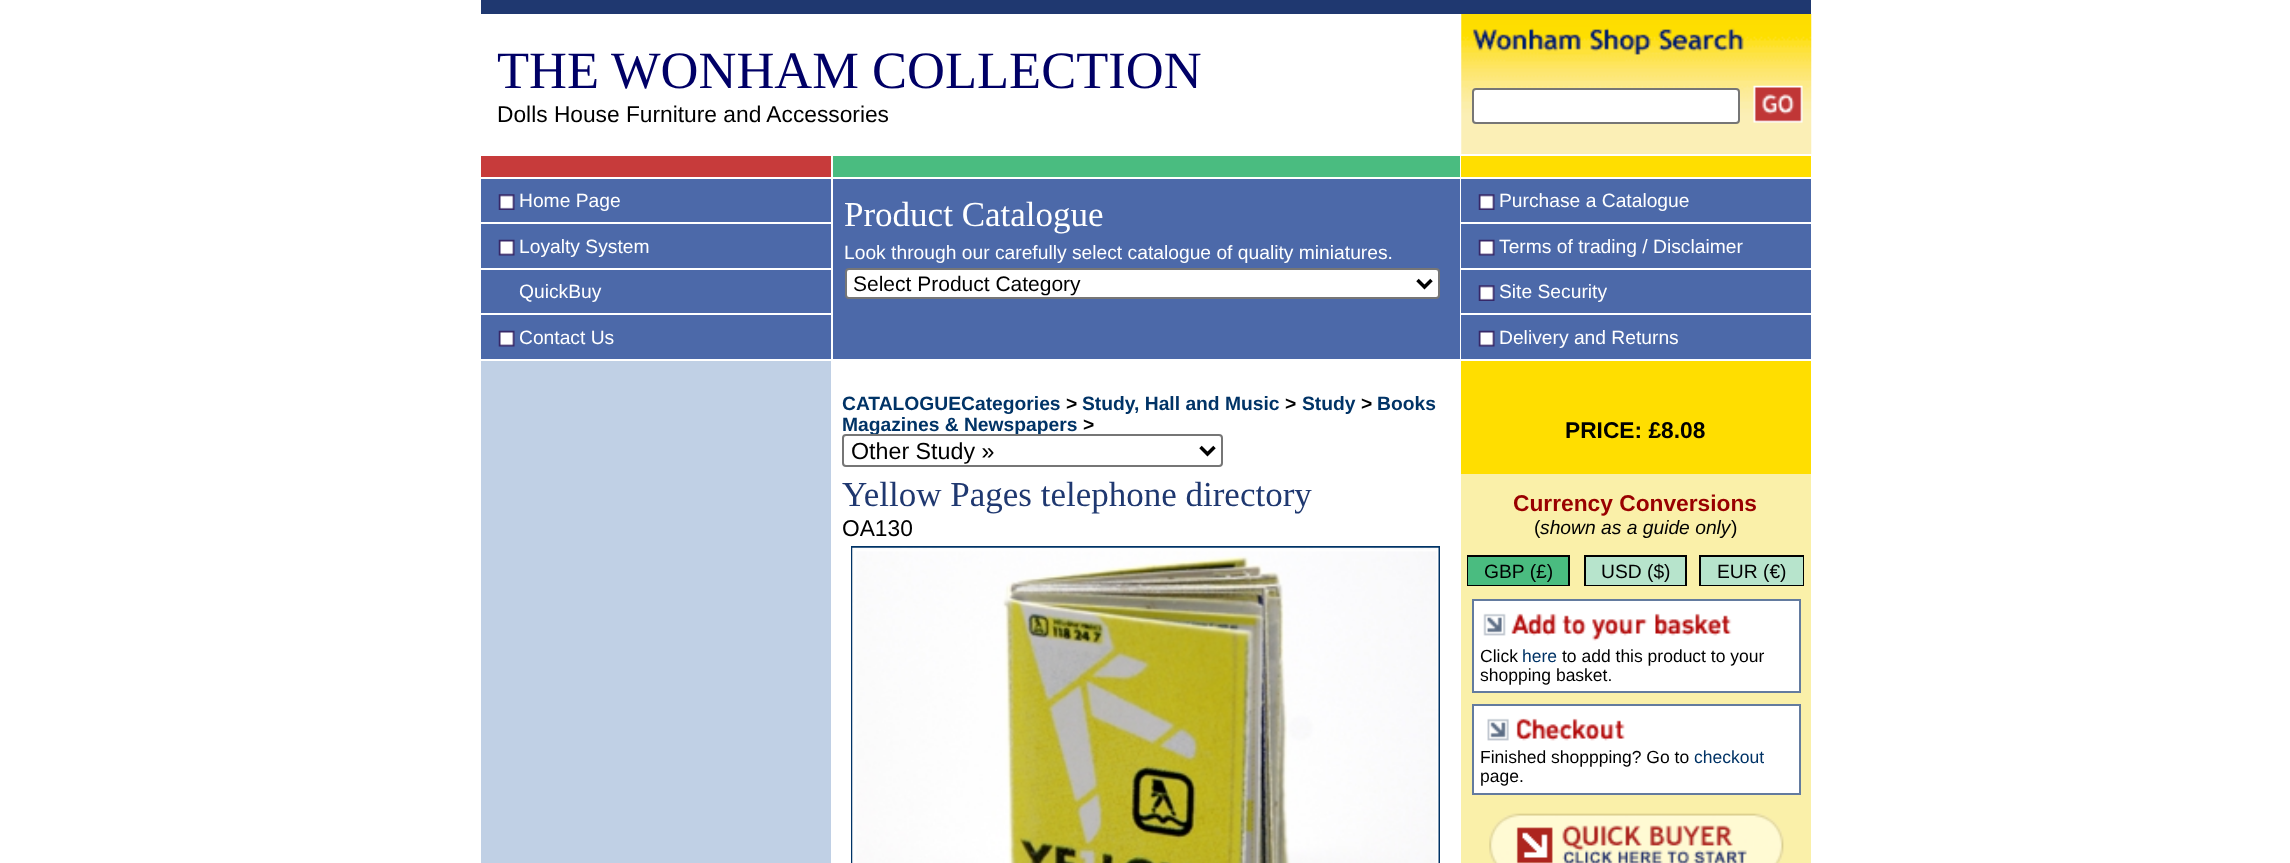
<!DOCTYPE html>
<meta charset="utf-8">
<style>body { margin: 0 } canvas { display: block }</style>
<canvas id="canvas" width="2290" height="863"></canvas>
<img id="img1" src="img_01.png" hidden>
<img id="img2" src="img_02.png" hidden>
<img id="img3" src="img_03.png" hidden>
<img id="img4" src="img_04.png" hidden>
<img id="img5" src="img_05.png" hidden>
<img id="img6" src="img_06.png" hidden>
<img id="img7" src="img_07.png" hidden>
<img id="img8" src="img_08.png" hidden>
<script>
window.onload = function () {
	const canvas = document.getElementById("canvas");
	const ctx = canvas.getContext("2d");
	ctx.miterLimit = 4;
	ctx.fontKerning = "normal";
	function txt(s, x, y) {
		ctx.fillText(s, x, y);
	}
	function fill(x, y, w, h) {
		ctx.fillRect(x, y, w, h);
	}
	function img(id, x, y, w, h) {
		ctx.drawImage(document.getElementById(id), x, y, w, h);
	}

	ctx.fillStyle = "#FFFFFF";
	fill(0, 0, 2290, 863);
	ctx.fillStyle = "#1F3870";
	fill(481, 0, 1330, 14);
	img("img1", 1461, 14, 351, 140);
	ctx.fillStyle = "#FFFFFF";
	ctx.beginPath();
	ctx.roundRect(1473, 89, 266, 34, 3);
	ctx.fill();
	ctx.strokeStyle = "#767676";
	ctx.lineWidth = 2;
	ctx.stroke();
	img("img2", 1753, 85, 50, 38);
	ctx.fillStyle = "#C73B3B";
	fill(481, 156, 350, 21);
	ctx.fillStyle = "#4ABC80";
	fill(833, 156, 627, 21);
	ctx.fillStyle = "#FFDE00";
	fill(1461, 156, 350, 21);
	ctx.fillStyle = "#4C69A9";
	fill(481, 179, 350, 180);
	img("img3", 498, 194, 17, 16);
	ctx.fillStyle = "#FFFFFF";
	fill(481, 222, 350, 2);
	img("img4", 498, 239, 17, 17);
	fill(481, 268, 350, 2);
	fill(481, 313, 350, 2);
	img("img4", 498, 330, 17, 17);
	ctx.fillStyle = "#4C69A9";
	fill(833, 179, 627, 180);
	ctx.fillStyle = "#FFFFFF";
	ctx.beginPath();
	ctx.roundRect(846, 269, 593, 29, 3);
	ctx.fill();
	ctx.stroke();
	ctx.beginPath();
	ctx.moveTo(1417.5, 280);
	ctx.lineTo(1424.5, 287);
	ctx.lineTo(1431.5, 280);
	ctx.strokeStyle = "#000000";
	ctx.lineWidth = 3.5;
	ctx.stroke();
	ctx.fillStyle = "#4C69A9";
	fill(1461, 179, 350, 180);
	img("img3", 1478, 194, 17, 16);
	ctx.fillStyle = "#FFFFFF";
	fill(1461, 222, 350, 2);
	img("img4", 1478, 239, 17, 17);
	fill(1461, 268, 350, 2);
	img("img3", 1478, 285, 17, 16);
	fill(1461, 313, 350, 2);
	img("img4", 1478, 330, 17, 17);
	ctx.fillStyle = "#C0D0E5";
	fill(481, 361, 350, 502);
	ctx.strokeStyle = "#003366";
	ctx.lineWidth = 2;
	ctx.strokeRect(852, 547, 587, 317);
	img("img5", 852, 547, 587, 316);
	ctx.fillStyle = "#FAF0A9";
	fill(1461, 474, 350, 389);
	ctx.fillStyle = "#FFDE00";
	fill(1461, 361, 350, 113);
	ctx.fillStyle = "#000000";
	fill(1467, 555, 103, 31);
	ctx.fillStyle = "#4ABC80";
	fill(1468, 557, 100, 28);
	ctx.fillStyle = "#000000";
	fill(1584, 555, 103, 31);
	ctx.fillStyle = "#B7E4CC";
	fill(1586, 557, 99, 28);
	ctx.fillStyle = "#000000";
	fill(1699, 555, 105, 31);
	ctx.fillStyle = "#B7E4CC";
	fill(1701, 557, 102, 28);
	ctx.fillStyle = "#FFFFFF";
	ctx.beginPath();
	ctx.rect(1473, 600, 327, 92);
	ctx.fill();
	ctx.strokeStyle = "#637B9F";
	ctx.stroke();
	img("img6", 1483, 613, 249, 28);
	ctx.beginPath();
	ctx.rect(1473, 705, 327, 89);
	ctx.fill();
	ctx.stroke();
	img("img7", 1487, 718, 138, 23);
	img("img8", 1489, 813, 295, 50);
	ctx.font = "52.5px Liberation Serif";
	ctx.fillStyle = "#000066";
	txt("THE", 497, 88);
	txt("WONHAM COLLECTION", 611, 88);
	ctx.font = "22.75px Liberation Sans";
	ctx.fillStyle = "#000000";
	txt("Dolls House Furniture and Accessories", 497, 122);
	ctx.font = "19.25px Liberation Sans";
	ctx.fillStyle = "#FFFFFF";
	txt("Home Page", 519, 207);
	txt("Loyalty System", 519, 253);
	txt("QuickBuy", 519, 298);
	txt("Contact Us", 519, 344);
	ctx.font = "35px Liberation Serif";
	txt("Product Catalogue", 844, 226);
	ctx.font = "19.25px Liberation Sans";
	txt("Look through our carefully select catalogue of quality miniatures.", 844, 259);
	ctx.font = "21px Liberation Sans";
	ctx.fillStyle = "#000000";
	txt("Select Product Category", 853, 291);
	ctx.font = "19.25px Liberation Sans";
	ctx.fillStyle = "#FFFFFF";
	txt("Purchase a Catalogue", 1499, 207);
	txt("Terms of trading / Disclaimer", 1499, 253);
	txt("Site Security", 1499, 298);
	txt("Delivery and Returns", 1499, 344);
	ctx.font = "bold 19.25px Liberation Sans";
	ctx.fillStyle = "#003366";
	txt("CATALOGUECategories", 842, 410);
	ctx.fillStyle = "#000000";
	txt(">", 1066, 410);
	ctx.fillStyle = "#003366";
	txt("Study, Hall and Music", 1082, 410);
	ctx.fillStyle = "#000000";
	txt(">", 1285, 410);
	ctx.fillStyle = "#003366";
	txt("Study", 1302, 410);
	ctx.fillStyle = "#000000";
	txt(">", 1361, 410);
	ctx.fillStyle = "#003366";
	txt("Books", 1377, 410);
	txt("Magazines & Newspapers", 842, 431);
	ctx.fillStyle = "#000000";
	txt(">", 1083, 431);
	ctx.fillStyle = "#FFFFFF";
	ctx.beginPath();
	ctx.roundRect(843, 435, 379, 31, 3);
	ctx.fill();
	ctx.strokeStyle = "#767676";
	ctx.stroke();
	ctx.beginPath();
	ctx.moveTo(1200.5, 447);
	ctx.lineTo(1207.5, 454);
	ctx.lineTo(1214.5, 447);
	ctx.strokeStyle = "#000000";
	ctx.lineWidth = 3.5;
	ctx.stroke();
	ctx.font = "23.25px Liberation Sans";
	ctx.fillStyle = "#000000";
	txt("Other Study »", 851, 459);
	ctx.font = "35px Liberation Serif";
	ctx.fillStyle = "#1F3870";
	txt("Yellow Pages telephone directory", 842, 506);
	ctx.font = "22.75px Liberation Sans";
	ctx.fillStyle = "#000000";
	txt("OA130", 842, 536);
	ctx.font = "bold 22.75px Liberation Sans";
	txt("PRICE: £8.08", 1565, 438);
	ctx.fillStyle = "#990000";
	txt("Currency Conversions", 1513, 511);
	ctx.font = "19.25px Liberation Sans";
	ctx.fillStyle = "#000000";
	txt("(", 1534, 534);
	ctx.font = "italic 19.25px Liberation Sans";
	txt("shown as a guide only", 1540, 534);
	ctx.font = "19.25px Liberation Sans";
	txt(")", 1731, 534);
	txt("GBP (£)", 1484, 578);
	txt("USD ($)", 1601, 578);
	txt("EUR (€)", 1717, 578);
	ctx.font = "17.5px Liberation Sans";
	txt("Click", 1480, 662);
	ctx.fillStyle = "#003366";
	txt("here", 1522, 662);
	ctx.fillStyle = "#000000";
	txt("to add this product to your", 1562, 662);
	txt("shopping basket.", 1480, 681);
	txt("Finished shoppping? Go to", 1480, 763);
	ctx.fillStyle = "#003366";
	txt("checkout", 1694, 763);
	ctx.fillStyle = "#000000";
	txt("page.", 1480, 782);
};
</script>
